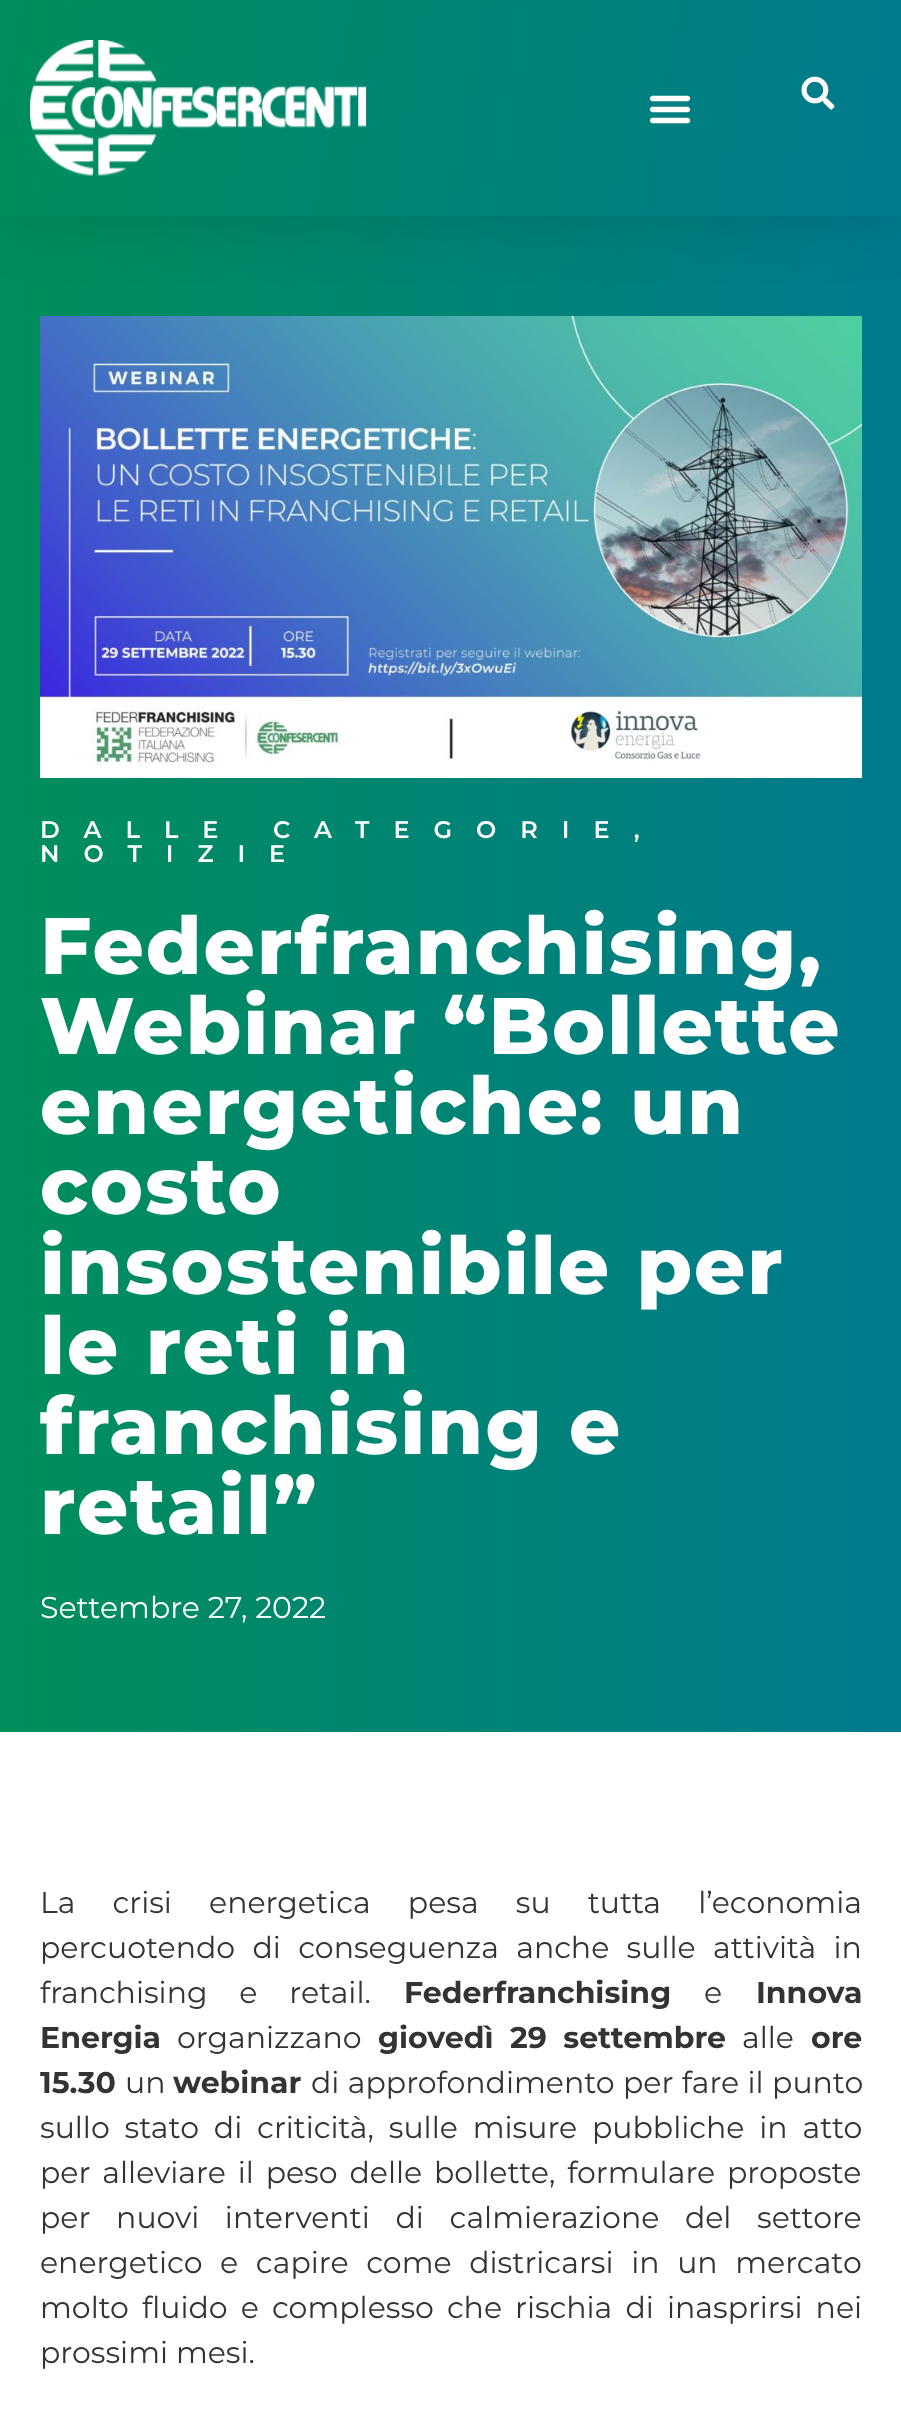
<!DOCTYPE html>
<meta charset="utf-8">
<style>body { margin: 0 } canvas { display: block }</style>
<canvas id="canvas" width="901" height="2430"></canvas>
<img id="img1" src="img_04.png" hidden>
<img id="img2" src="img_01.png" hidden>
<img id="img3" src="img_02.png" hidden>
<img id="img4" src="img_03.png" hidden>
<script>
window.onload = function () {
	const canvas = document.getElementById("canvas");
	const ctx = canvas.getContext("2d");
	ctx.miterLimit = 4;
	ctx.fontKerning = "normal";
	function txt(s, x, y) {
		ctx.fillText(s, x, y);
	}
	function fill(x, y, w, h) {
		ctx.fillRect(x, y, w, h);
	}
	function img(id, x, y, w, h) {
		ctx.drawImage(document.getElementById(id), x, y, w, h);
	}
	let gradient;

	ctx.fillStyle = "#FFFFFF";
	fill(0, 0, 901, 2430);
	gradient = ctx.createLinearGradient(0, 974, 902, 974);
	gradient.addColorStop(0, "#008E5B");
	gradient.addColorStop(1, "#007A8E");
	ctx.fillStyle = gradient;
	fill(0, 216, 901, 1516);
	img("img1", 40, 316, 822, 462);
	ctx.fillStyle = "rgba(0, 0, 0, 0.1)";
	ctx.filter = "blur(30px)";
	ctx.beginPath();
	ctx.rect(0, 10, 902, 216);
	ctx.fill();
	ctx.filter = "none";
	gradient = ctx.createLinearGradient(-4.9, 28, 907, 188);
	gradient.addColorStop(0, "#008E5B");
	gradient.addColorStop(1, "#007A8E");
	ctx.fillStyle = gradient;
	fill(0, 0, 901, 216);
	img("img2", 30, 40, 337, 136);
	img("img3", 649, 95, 42, 29);
	img("img4", 801, 76, 34, 34);
	ctx.letterSpacing = "24px";
	ctx.font = "600 24px Montserrat";
	ctx.fillStyle = "#FFFFFF";
	txt("DALLE CATEGORIE,", 40, 838);
	txt("NOTIZIE", 40, 862);
	ctx.letterSpacing = "2px";
	ctx.font = "800 80px Montserrat";
	txt("Federfranchising,", 40, 974);
	txt("Webinar “Bollette", 40, 1054);
	txt("energetiche: un", 40, 1134);
	txt("costo", 40, 1214);
	txt("insostenibile per", 40, 1294);
	txt("le reti in", 40, 1374);
	txt("franchising e", 40, 1454);
	txt("retail”", 40, 1534);
	ctx.letterSpacing = "0px";
	ctx.font = "30px Montserrat";
	txt("Settembre 27, 2022", 40, 1618);
	ctx.wordSpacing = "29.25px";
	ctx.fillStyle = "#333333";
	txt("La crisi energetica pesa su tutta l’economia", 40, 1913);
	ctx.wordSpacing = "9.5px";
	txt("percuotendo di conseguenza anche sulle attività in", 40, 1958);
	ctx.wordSpacing = "24px";
	txt("franchising e retail.", 40, 2003);
	ctx.wordSpacing = "0px";
	ctx.font = "bold 30px Montserrat";
	txt("Federfranchising", 404, 2003);
	ctx.font = "30px Montserrat";
	txt("e", 704, 2003);
	ctx.font = "bold 30px Montserrat";
	txt("Innova", 756, 2003);
	txt("Energia", 40, 2048);
	ctx.font = "30px Montserrat";
	txt("organizzano", 177, 2048);
	ctx.wordSpacing = "8px";
	ctx.font = "bold 30px Montserrat";
	txt("giovedì 29 settembre", 378, 2048);
	ctx.wordSpacing = "0px";
	ctx.font = "30px Montserrat";
	txt("alle", 742, 2048);
	ctx.font = "bold 30px Montserrat";
	txt("ore", 811, 2048);
	txt("15.30", 40, 2093);
	ctx.font = "30px Montserrat";
	txt("un", 125, 2093);
	ctx.font = "bold 30px Montserrat";
	txt("webinar", 173, 2093);
	ctx.wordSpacing = "0.5px";
	ctx.font = "30px Montserrat";
	txt("di approfondimento per fare il punto", 311, 2093);
	ctx.wordSpacing = "7px";
	txt("sullo stato di criticità, sulle misure pubbliche in atto", 40, 2138);
	ctx.wordSpacing = "4px";
	txt("per alleviare il peso delle bollette, formulare proposte", 40, 2183);
	ctx.wordSpacing = "17.75px";
	txt("per nuovi interventi di calmierazione del settore", 40, 2228);
	ctx.wordSpacing = "9.75px";
	txt("energetico e capire come districarsi in un mercato", 40, 2273);
	ctx.wordSpacing = "5.25px";
	txt("molto fluido e complesso che rischia di inasprirsi nei", 40, 2318);
	ctx.wordSpacing = "0px";
	txt("prossimi mesi.", 40, 2363);
};
</script>
